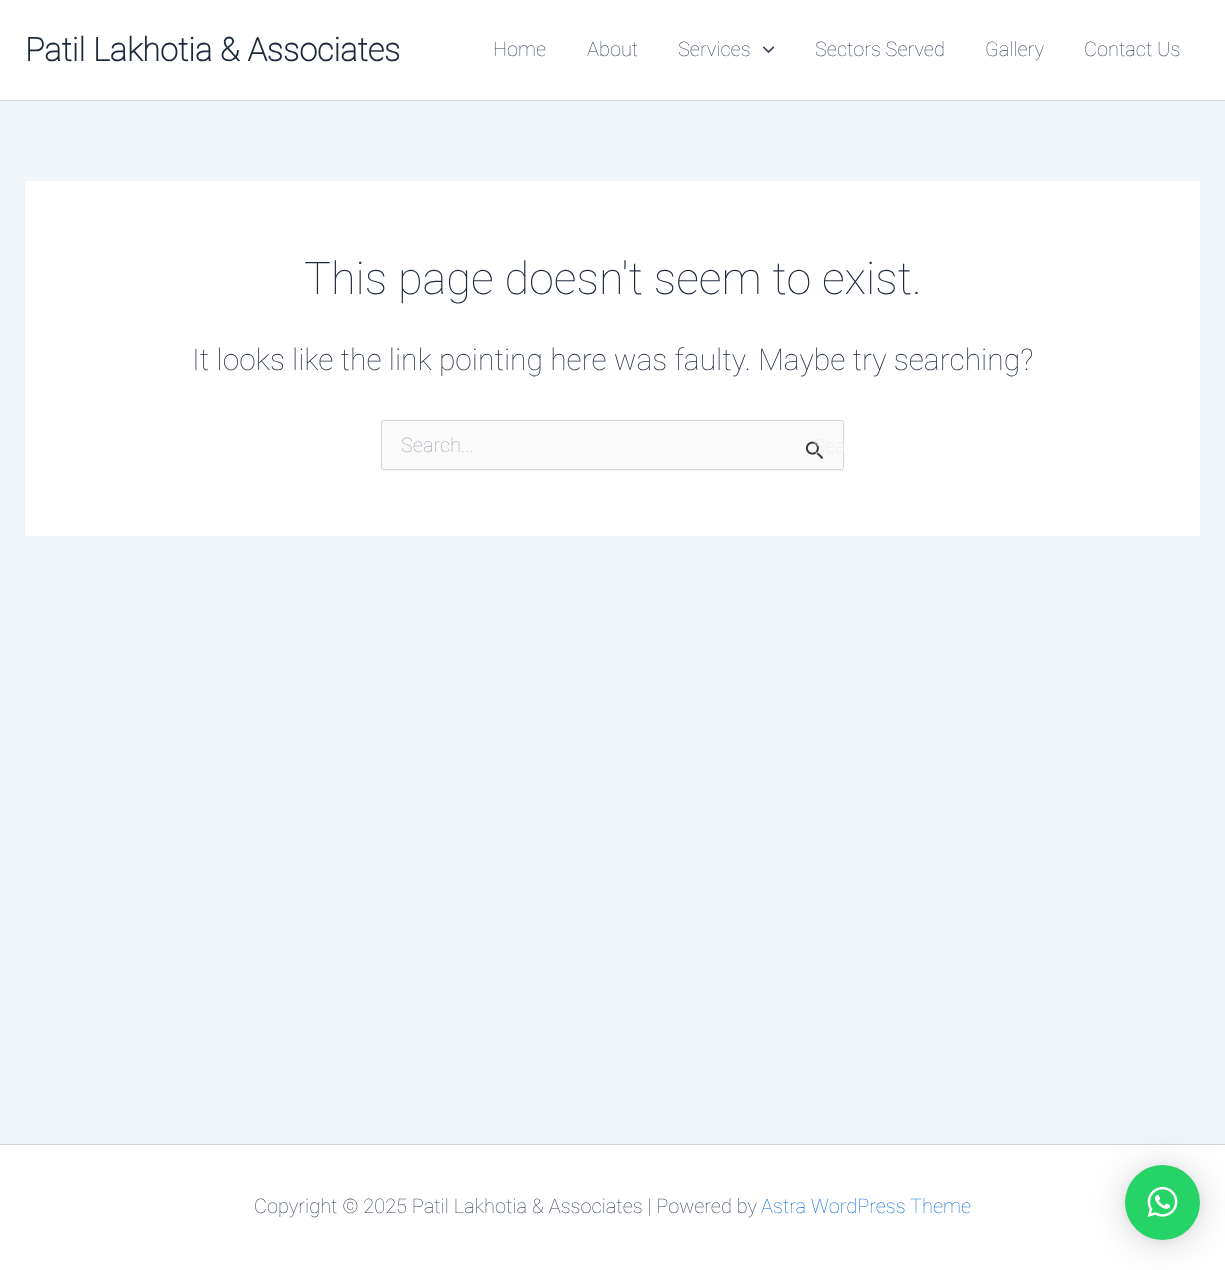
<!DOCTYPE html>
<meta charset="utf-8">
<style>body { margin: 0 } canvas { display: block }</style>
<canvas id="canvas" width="1225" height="1270"></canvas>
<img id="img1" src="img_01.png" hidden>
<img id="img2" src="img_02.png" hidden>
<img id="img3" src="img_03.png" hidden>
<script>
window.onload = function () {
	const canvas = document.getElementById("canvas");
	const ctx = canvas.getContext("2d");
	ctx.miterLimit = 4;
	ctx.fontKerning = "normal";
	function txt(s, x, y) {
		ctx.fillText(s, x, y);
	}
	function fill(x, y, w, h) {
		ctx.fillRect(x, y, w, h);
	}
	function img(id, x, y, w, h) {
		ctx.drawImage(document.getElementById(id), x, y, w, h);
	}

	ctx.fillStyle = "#F0F5FA";
	fill(0, 0, 1225, 1270);
	ctx.fillStyle = "#FFFFFF";
	fill(0, 0, 1225, 100);
	ctx.fillStyle = "#D1D5DB";
	fill(0, 100, 1225, 1);
	img("img1", 763, 46, 12, 8);
	ctx.fillStyle = "#FFFFFF";
	fill(25, 181, 1175, 355);
	ctx.fillStyle = "rgba(0, 0, 0, 0.05)";
	ctx.filter = "blur(1px)";
	ctx.beginPath();
	ctx.roundRect(381, 421, 463, 50, 2.5);
	ctx.fill();
	ctx.filter = "none";
	ctx.fillStyle = "#FAFAFA";
	ctx.beginPath();
	ctx.roundRect(381.5, 420.5, 462, 49, 2);
	ctx.fill();
	ctx.strokeStyle = "#D1D5DB";
	ctx.stroke();
	img("img2", 805, 441, 18, 18);
	ctx.fillStyle = "#FFFFFF";
	fill(0, 1145, 1225, 125);
	ctx.fillStyle = "#D1D5DB";
	fill(0, 1144, 1225, 1);
	ctx.fillStyle = "rgba(0, 0, 0, 0.16)";
	ctx.filter = "blur(20px)";
	ctx.beginPath();
	ctx.roundRect(1125, 1168, 75, 75, 37.5);
	ctx.fill();
	ctx.filter = "none";
	ctx.fillStyle = "rgba(0, 0, 0, 0.06)";
	ctx.filter = "blur(4px)";
	ctx.beginPath();
	ctx.roundRect(1125, 1166, 75, 75, 37.5);
	ctx.fill();
	ctx.filter = "none";
	ctx.fillStyle = "#25D366";
	ctx.beginPath();
	ctx.arc(1162.5, 1202.5, 37.5, 0, Math.PI * 2);
	ctx.fill();
	img("img3", 1147, 1186, 31, 31);
	ctx.font = "bold 32.5px Roboto";
	ctx.fillStyle = "#1E293B";
	txt("Patil Lakhotia & Associates", 25, 61);
	ctx.font = "100 20px Roboto";
	ctx.fillStyle = "#334155";
	txt("Home", 493, 56);
	txt("About", 587, 56);
	txt("Services", 678, 56);
	txt("Sectors Served", 815, 56);
	txt("Gallery", 985, 56);
	txt("Contact Us", 1084, 56);
	ctx.font = "100 45px Roboto";
	ctx.fillStyle = "#1E293B";
	txt("This page doesn't seem to exist.", 304, 294);
	ctx.font = "100 30px Roboto";
	txt("It looks like the link pointing here was faulty. Maybe try searching?", 192, 370);
	ctx.font = "100 20px Roboto";
	ctx.fillStyle = "#9CA3AF";
	txt("Search...", 401, 452);
	ctx.fillStyle = "#E7E8E8";
	txt("Sea", 813, 453);
	ctx.fillStyle = "#334155";
	txt("Copyright © 2025 Patil Lakhotia & Associates | Powered by", 254, 1213);
	ctx.fillStyle = "#046BD2";
	txt("Astra WordPress Theme", 761, 1213);
};
</script>
